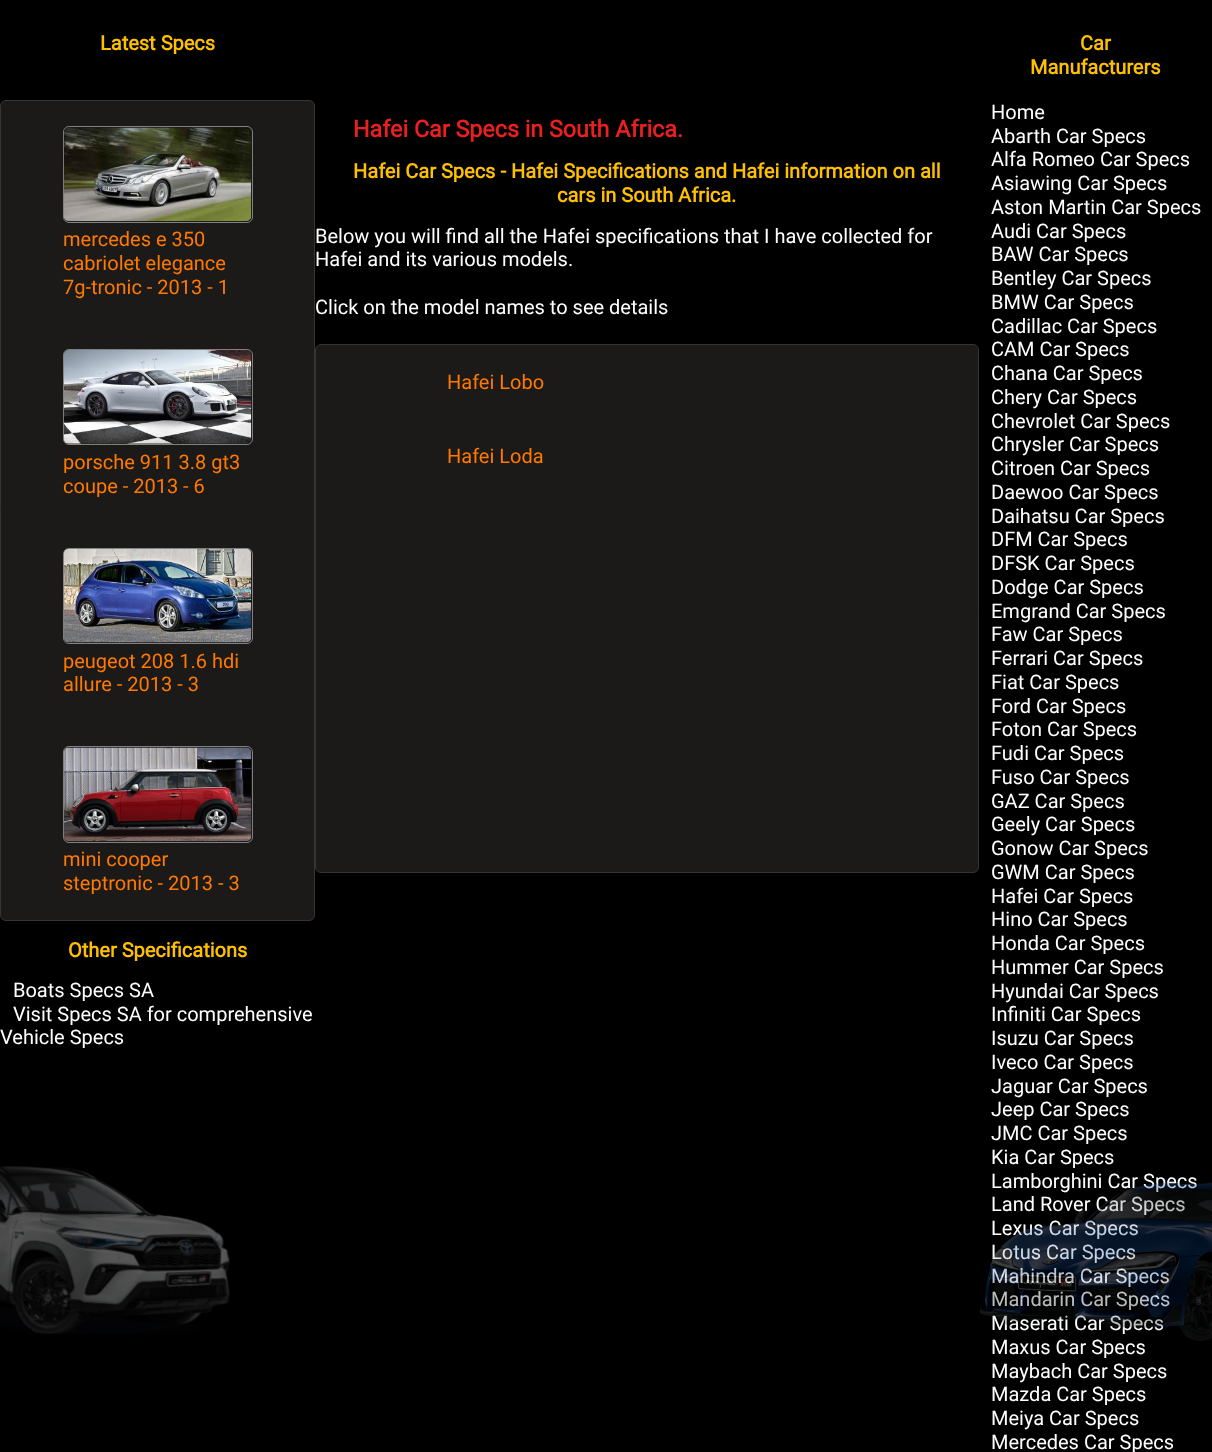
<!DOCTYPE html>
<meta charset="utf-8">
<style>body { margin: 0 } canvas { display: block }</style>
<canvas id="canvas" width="1212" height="1452"></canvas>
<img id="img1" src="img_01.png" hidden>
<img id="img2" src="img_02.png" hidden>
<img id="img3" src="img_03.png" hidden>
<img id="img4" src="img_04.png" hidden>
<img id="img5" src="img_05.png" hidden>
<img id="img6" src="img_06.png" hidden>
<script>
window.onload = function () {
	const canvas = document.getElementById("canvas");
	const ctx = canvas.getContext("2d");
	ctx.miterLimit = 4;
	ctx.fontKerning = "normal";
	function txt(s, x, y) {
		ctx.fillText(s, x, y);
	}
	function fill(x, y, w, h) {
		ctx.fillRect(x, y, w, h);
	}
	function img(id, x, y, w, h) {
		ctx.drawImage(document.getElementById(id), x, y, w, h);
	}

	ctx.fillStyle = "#000000";
	fill(0, 0, 1212, 1452);
	ctx.fillStyle = "#1B1A19";
	ctx.beginPath();
	ctx.roundRect(0.5, 100.5, 314, 820, 5.5);
	ctx.fill();
	ctx.strokeStyle = "#353535";
	ctx.stroke();
	ctx.beginPath();
	ctx.roundRect(63.5, 126.5, 189, 96, 5.5);
	ctx.strokeStyle = "#808080";
	ctx.stroke();
	img("img1", 63, 127, 189, 95);
	ctx.beginPath();
	ctx.roundRect(63.5, 349.5, 189, 95, 5.5);
	ctx.stroke();
	img("img2", 63, 350, 189, 94);
	ctx.beginPath();
	ctx.roundRect(63.5, 548.5, 189, 95, 5.5);
	ctx.stroke();
	img("img3", 63, 548, 189, 95);
	ctx.beginPath();
	ctx.roundRect(63.5, 746.5, 189, 96, 5.5);
	ctx.stroke();
	img("img4", 63, 747, 189, 95);
	ctx.beginPath();
	ctx.roundRect(315.5, 344.5, 663, 528, 5.5);
	ctx.fill();
	ctx.strokeStyle = "#353535";
	ctx.stroke();
	img("img5", 0, 1166, 230, 168);
	ctx.font = "bold 20px Roboto";
	ctx.fillStyle = "#FFC000";
	txt("Latest Specs", 100, 50);
	txt("Car", 1080, 50);
	txt("Manufacturers", 1030, 74);
	ctx.font = "20px Roboto";
	ctx.fillStyle = "#FF7900";
	txt("mercedes e 350", 63, 246);
	txt("cabriolet elegance", 63, 270);
	txt("7g-tronic - 2013 - 1", 63, 294);
	txt("porsche 911 3.8 gt3", 63, 469);
	txt("coupe - 2013 - 6", 63, 493);
	txt("peugeot 208 1.6 hdi", 63, 668);
	txt("allure - 2013 - 3", 63, 691);
	txt("mini cooper", 63, 866);
	txt("steptronic - 2013 - 3", 63, 890);
	ctx.font = "bold 20px Roboto";
	ctx.fillStyle = "#FFC000";
	txt("Other Specifications", 68, 957);
	ctx.font = "20px Roboto";
	ctx.fillStyle = "#FFFFFF";
	txt("Boats Specs SA", 13, 997);
	txt("Visit Specs SA for comprehensive", 13, 1021);
	txt("Vehicle Specs", 0, 1044);
	ctx.font = "bold 23.3px Roboto";
	ctx.fillStyle = "#EA1F1F";
	txt("Hafei Car Specs in South Africa.", 353, 137);
	ctx.font = "bold 20px Roboto";
	ctx.fillStyle = "#FFC000";
	txt("Hafei Car Specs - Hafei Specifications and Hafei information on all", 353, 178);
	txt("cars in South Africa.", 557, 202);
	ctx.font = "20px Roboto";
	ctx.fillStyle = "#FFFFFF";
	txt("Below you will find all the Hafei specifications that I have collected for", 315, 243);
	txt("Hafei and its various models.", 315, 266);
	txt("Click on the model names to see details", 315, 314);
	ctx.fillStyle = "#FF7900";
	txt("Hafei Lobo", 447, 389);
	txt("Hafei Loda", 447, 463);
	ctx.fillStyle = "#FFFFFF";
	txt("Home", 991, 119);
	txt("Abarth Car Specs", 991, 143);
	txt("Alfa Romeo Car Specs", 991, 166);
	txt("Asiawing Car Specs", 991, 190);
	txt("Aston Martin Car Specs", 991, 214);
	txt("Audi Car Specs", 991, 238);
	txt("BAW Car Specs", 991, 261);
	txt("Bentley Car Specs", 991, 285);
	txt("BMW Car Specs", 991, 309);
	txt("Cadillac Car Specs", 991, 333);
	txt("CAM Car Specs", 991, 356);
	txt("Chana Car Specs", 991, 380);
	txt("Chery Car Specs", 991, 404);
	txt("Chevrolet Car Specs", 991, 428);
	txt("Chrysler Car Specs", 991, 451);
	txt("Citroen Car Specs", 991, 475);
	txt("Daewoo Car Specs", 991, 499);
	txt("Daihatsu Car Specs", 991, 523);
	txt("DFM Car Specs", 991, 546);
	txt("DFSK Car Specs", 991, 570);
	txt("Dodge Car Specs", 991, 594);
	txt("Emgrand Car Specs", 991, 618);
	txt("Faw Car Specs", 991, 641);
	txt("Ferrari Car Specs", 991, 665);
	txt("Fiat Car Specs", 991, 689);
	txt("Ford Car Specs", 991, 713);
	txt("Foton Car Specs", 991, 736);
	txt("Fudi Car Specs", 991, 760);
	txt("Fuso Car Specs", 991, 784);
	txt("GAZ Car Specs", 991, 808);
	txt("Geely Car Specs", 991, 831);
	txt("Gonow Car Specs", 991, 855);
	txt("GWM Car Specs", 991, 879);
	txt("Hafei Car Specs", 991, 903);
	txt("Hino Car Specs", 991, 926);
	txt("Honda Car Specs", 991, 950);
	txt("Hummer Car Specs", 991, 974);
	txt("Hyundai Car Specs", 991, 998);
	txt("Infiniti Car Specs", 991, 1021);
	txt("Isuzu Car Specs", 991, 1045);
	txt("Iveco Car Specs", 991, 1069);
	txt("Jaguar Car Specs", 991, 1093);
	txt("Jeep Car Specs", 991, 1116);
	txt("JMC Car Specs", 991, 1140);
	txt("Kia Car Specs", 991, 1164);
	txt("Lamborghini Car Specs", 991, 1188);
	txt("Land Rover Car Specs", 991, 1211);
	txt("Lexus Car Specs", 991, 1235);
	txt("Lotus Car Specs", 991, 1259);
	txt("Mahindra Car Specs", 991, 1283);
	txt("Mandarin Car Specs", 991, 1306);
	txt("Maserati Car Specs", 991, 1330);
	txt("Maxus Car Specs", 991, 1354);
	txt("Maybach Car Specs", 991, 1378);
	txt("Mazda Car Specs", 991, 1401);
	txt("Meiya Car Specs", 991, 1425);
	txt("Mercedes Car Specs", 991, 1449);
	img("img6", 980, 1182, 232, 159);
};
</script>
